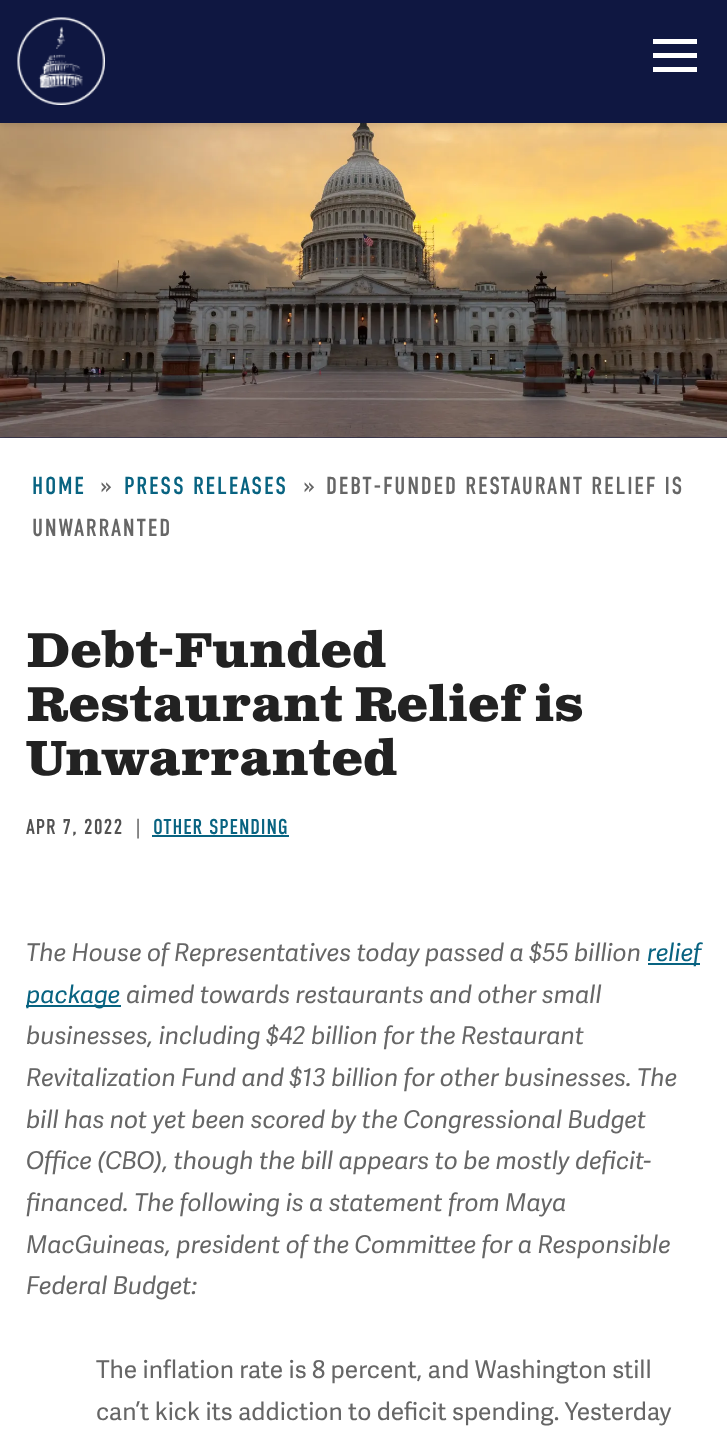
<!DOCTYPE html>
<meta charset="utf-8">
<style>body { margin: 0 } canvas { display: block }</style>
<canvas id="canvas" width="727" height="1429"></canvas>
<img id="img1" src="img_02.png" hidden>
<img id="img2" src="img_01.png" hidden>
<script>
window.onload = function () {
	const canvas = document.getElementById("canvas");
	const ctx = canvas.getContext("2d");
	ctx.miterLimit = 4;
	ctx.fontKerning = "normal";
	function txt(s, x, y) {
		ctx.fillText(s, x, y);
	}
	function fill(x, y, w, h) {
		ctx.fillRect(x, y, w, h);
	}
	function img(id, x, y, w, h) {
		ctx.drawImage(document.getElementById(id), x, y, w, h);
	}

	ctx.fillStyle = "#FFFFFF";
	fill(0, 0, 727, 1429);
	ctx.fillStyle = "#0F1741";
	fill(0, 437, 727, 1);
	img("img1", 0, 123, 727, 315);
	ctx.fillStyle = "rgba(34, 34, 34, 0.1)";
	ctx.filter = "blur(2.5px)";
	ctx.beginPath();
	ctx.rect(0, 4, 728, 122);
	ctx.fill();
	ctx.filter = "none";
	ctx.fillStyle = "#0F1741";
	fill(0, 0, 727, 123);
	img("img2", 17, 17, 88, 88);
	ctx.fillStyle = "#FFFFFF";
	fill(653, 53, 44, 5);
	fill(653, 39, 44, 5);
	fill(653, 67, 44, 5);
	ctx.fillStyle = "#086381";
	fill(152, 835, 137, 2);
	fill(648, 963, 52, 2);
	fill(26, 1005, 95, 2);
	ctx.letterSpacing = "1.75px";
	ctx.font = "24.5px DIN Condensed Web";
	txt("HOME", 32, 494);
	ctx.fillStyle = "#666666";
	txt("»", 101, 494);
	ctx.fillStyle = "#086381";
	txt("PRESS RELEASES", 124, 494);
	ctx.fillStyle = "#666666";
	txt("»", 304, 494);
	txt("DEBT-FUNDED RESTAURANT RELIEF IS", 326, 494);
	txt("UNWARRANTED", 32, 536);
	ctx.letterSpacing = "0px";
	ctx.font = "bold 49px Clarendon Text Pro";
	ctx.fillStyle = "#222222";
	txt("Debt-Funded", 26, 667);
	txt("Restaurant Relief is", 26, 721);
	txt("Unwarranted", 26, 775);
	ctx.letterSpacing = "0.9px";
	ctx.font = "21.5px DIN Condensed Web";
	ctx.fillStyle = "#525252";
	txt("APR 7, 2022", 26, 834);
	ctx.fillStyle = "#666666";
	txt("|", 136, 834);
	ctx.fillStyle = "#086381";
	txt("OTHER SPENDING", 153, 834);
	ctx.letterSpacing = "0px";
	ctx.font = "italic 24.5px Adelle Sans";
	ctx.fillStyle = "#666666";
	txt("The House of Representatives today passed a $55 billion", 26, 961);
	ctx.fillStyle = "#086381";
	txt("relief", 647, 961);
	txt("package", 26, 1003);
	ctx.fillStyle = "#666666";
	txt("aimed towards restaurants and other small", 126, 1003);
	txt("businesses, including $42 billion for the Restaurant", 26, 1044);
	txt("Revitalization Fund and $13 billion for other businesses. The", 26, 1086);
	txt("bill has not yet been scored by the Congressional Budget", 26, 1128);
	txt("Office (CBO), though the bill appears to be mostly deficit-", 26, 1169);
	txt("financed. The following is a statement from Maya", 26, 1211);
	txt("MacGuineas, president of the Committee for a Responsible", 26, 1253);
	txt("Federal Budget:", 26, 1294);
	ctx.font = "24.5px Adelle Sans";
	txt("The inflation rate is 8 percent, and Washington still", 96, 1378);
	txt("can’t kick its addiction to deficit spending. Yesterday", 96, 1420);
};
</script>
